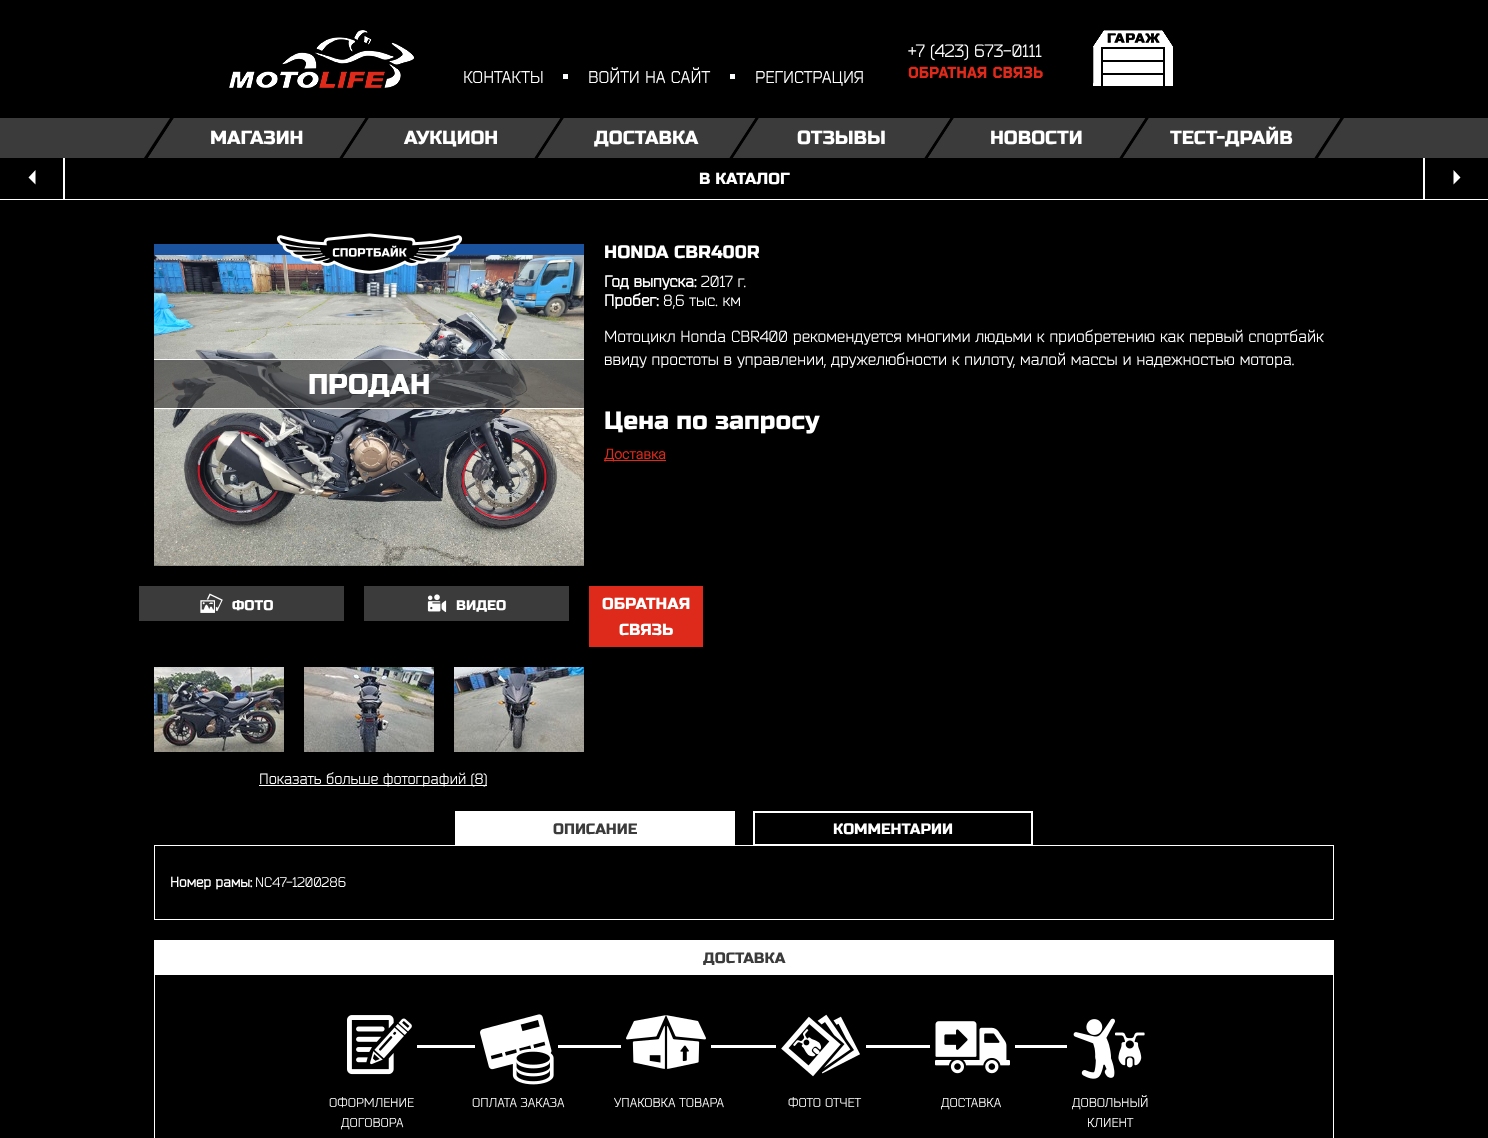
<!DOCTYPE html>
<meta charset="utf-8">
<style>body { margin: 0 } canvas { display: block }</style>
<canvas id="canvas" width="1488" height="1138"></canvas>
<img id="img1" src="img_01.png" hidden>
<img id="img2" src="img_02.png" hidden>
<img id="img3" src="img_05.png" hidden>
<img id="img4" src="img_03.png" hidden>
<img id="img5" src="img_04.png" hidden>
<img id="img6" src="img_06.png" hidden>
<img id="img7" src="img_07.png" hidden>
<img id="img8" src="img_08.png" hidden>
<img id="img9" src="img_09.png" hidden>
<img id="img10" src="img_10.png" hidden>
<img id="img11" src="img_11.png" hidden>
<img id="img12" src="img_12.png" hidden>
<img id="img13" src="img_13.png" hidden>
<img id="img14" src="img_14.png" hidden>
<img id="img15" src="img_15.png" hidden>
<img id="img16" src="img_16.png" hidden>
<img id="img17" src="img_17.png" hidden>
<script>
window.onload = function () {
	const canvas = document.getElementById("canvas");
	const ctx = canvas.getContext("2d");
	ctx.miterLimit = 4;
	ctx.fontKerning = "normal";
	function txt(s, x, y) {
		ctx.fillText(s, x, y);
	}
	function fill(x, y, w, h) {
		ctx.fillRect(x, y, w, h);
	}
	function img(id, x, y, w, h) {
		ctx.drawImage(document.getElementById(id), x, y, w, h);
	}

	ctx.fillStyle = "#000000";
	fill(0, 0, 1488, 1138);
	img("img1", 229, 30, 185, 58);
	ctx.fillStyle = "#FBFDFF";
	fill(563, 74, 5, 5);
	fill(730, 74, 5, 5);
	img("img2", 1093, 30, 80, 56);
	ctx.fillStyle = "#3B3B3B";
	fill(0, 118, 1488, 40);
	ctx.fillStyle = "#000000";
	fill(144, 118, 1200, 40);
	ctx.save();
	ctx.beginPath();
	ctx.rect(144, 118, 1200, 40);
	ctx.clip();
	ctx.fillStyle = "#3B3B3B";
	ctx.beginPath();
	ctx.moveTo(144, 118);
	ctx.lineTo(170, 118);
	ctx.lineTo(144, 158);
	ctx.lineTo(118, 158);
	ctx.closePath();
	ctx.fill();
	ctx.restore();
	ctx.fillStyle = "#3B3B3B";
	ctx.beginPath();
	ctx.moveTo(174, 118);
	ctx.lineTo(365, 118);
	ctx.lineTo(339, 158);
	ctx.lineTo(148, 158);
	ctx.closePath();
	ctx.fill();
	ctx.save();
	ctx.beginPath();
	ctx.rect(144, 118, 1200, 40);
	ctx.clip();
	ctx.beginPath();
	ctx.moveTo(174.5, 119);
	ctx.lineTo(363.5, 119);
	ctx.lineTo(338.5, 157.5);
	ctx.lineTo(149.5, 157.5);
	ctx.closePath();
	ctx.strokeStyle = "#3B3B3B";
	ctx.lineWidth = 2;
	ctx.stroke();
	ctx.restore();
	ctx.beginPath();
	ctx.moveTo(369, 118);
	ctx.lineTo(560, 118);
	ctx.lineTo(534, 158);
	ctx.lineTo(343, 158);
	ctx.closePath();
	ctx.fill();
	ctx.save();
	ctx.beginPath();
	ctx.rect(144, 118, 1200, 40);
	ctx.clip();
	ctx.beginPath();
	ctx.moveTo(369.5, 119);
	ctx.lineTo(558.5, 119);
	ctx.lineTo(533.5, 157.5);
	ctx.lineTo(344.5, 157.5);
	ctx.closePath();
	ctx.strokeStyle = "#3B3B3B";
	ctx.lineWidth = 2;
	ctx.stroke();
	ctx.restore();
	ctx.beginPath();
	ctx.moveTo(564, 118);
	ctx.lineTo(755, 118);
	ctx.lineTo(729, 158);
	ctx.lineTo(538, 158);
	ctx.closePath();
	ctx.fill();
	ctx.save();
	ctx.beginPath();
	ctx.rect(144, 118, 1200, 40);
	ctx.clip();
	ctx.beginPath();
	ctx.moveTo(564.5, 119);
	ctx.lineTo(753.5, 119);
	ctx.lineTo(728.5, 157.5);
	ctx.lineTo(539.5, 157.5);
	ctx.closePath();
	ctx.strokeStyle = "#3B3B3B";
	ctx.lineWidth = 2;
	ctx.stroke();
	ctx.restore();
	ctx.beginPath();
	ctx.moveTo(759, 118);
	ctx.lineTo(950, 118);
	ctx.lineTo(924, 158);
	ctx.lineTo(733, 158);
	ctx.closePath();
	ctx.fill();
	ctx.save();
	ctx.beginPath();
	ctx.rect(144, 118, 1200, 40);
	ctx.clip();
	ctx.beginPath();
	ctx.moveTo(759.5, 119);
	ctx.lineTo(948.5, 119);
	ctx.lineTo(923.5, 157.5);
	ctx.lineTo(734.5, 157.5);
	ctx.closePath();
	ctx.strokeStyle = "#3B3B3B";
	ctx.lineWidth = 2;
	ctx.stroke();
	ctx.restore();
	ctx.beginPath();
	ctx.moveTo(954, 118);
	ctx.lineTo(1145, 118);
	ctx.lineTo(1119, 158);
	ctx.lineTo(928, 158);
	ctx.closePath();
	ctx.fill();
	ctx.save();
	ctx.beginPath();
	ctx.rect(144, 118, 1200, 40);
	ctx.clip();
	ctx.beginPath();
	ctx.moveTo(954.5, 119);
	ctx.lineTo(1143.5, 119);
	ctx.lineTo(1118.5, 157.5);
	ctx.lineTo(929.5, 157.5);
	ctx.closePath();
	ctx.strokeStyle = "#3B3B3B";
	ctx.lineWidth = 2;
	ctx.stroke();
	ctx.beginPath();
	ctx.moveTo(1344, 118);
	ctx.lineTo(1370, 118);
	ctx.lineTo(1344, 158);
	ctx.lineTo(1318, 158);
	ctx.closePath();
	ctx.fill();
	ctx.restore();
	ctx.beginPath();
	ctx.moveTo(1149, 118);
	ctx.lineTo(1340, 118);
	ctx.lineTo(1314, 158);
	ctx.lineTo(1123, 158);
	ctx.closePath();
	ctx.fill();
	ctx.save();
	ctx.beginPath();
	ctx.rect(144, 118, 1200, 40);
	ctx.clip();
	ctx.beginPath();
	ctx.moveTo(1149.5, 119);
	ctx.lineTo(1338.5, 119);
	ctx.lineTo(1313.5, 157.5);
	ctx.lineTo(1124.5, 157.5);
	ctx.closePath();
	ctx.strokeStyle = "#3B3B3B";
	ctx.lineWidth = 2;
	ctx.stroke();
	ctx.restore();
	ctx.fillStyle = "#FFFFFF";
	fill(0, 199, 1488, 1);
	fill(63, 158, 2, 41);
	ctx.beginPath();
	ctx.moveTo(35.5, 184.5);
	ctx.lineTo(35.5, 170);
	ctx.lineTo(28.5, 177.5);
	ctx.closePath();
	ctx.fill();
	fill(1423, 158, 2, 41);
	ctx.beginPath();
	ctx.moveTo(1453.5, 184.5);
	ctx.lineTo(1453.5, 170);
	ctx.lineTo(1460.5, 177.5);
	ctx.closePath();
	ctx.fill();
	ctx.fillStyle = "#1B539F";
	fill(154, 244, 430, 11);
	img("img3", 154, 255, 430, 311);
	img("img4", 276, 233, 187, 41);
	img("img5", 279, 236, 181, 35);
	img("img6", 154, 359, 430, 50);
	ctx.fillStyle = "#DD2A1B";
	fill(604, 460, 62, 1);
	ctx.fillStyle = "#3B3B3B";
	fill(139, 586, 205, 35);
	img("img7", 200, 593, 23, 20);
	fill(364, 586, 205, 35);
	img("img8", 427, 594, 20, 19);
	ctx.fillStyle = "#DD2A1B";
	fill(589, 586, 114, 61);
	img("img9", 154, 667, 130, 85);
	img("img10", 304, 667, 130, 85);
	img("img11", 454, 667, 130, 85);
	ctx.fillStyle = "#FFFFFF";
	fill(259, 785, 228, 1);
	fill(457, 813, 276, 31);
	fill(455, 811, 280, 2);
	fill(733, 811, 2, 34);
	fill(455, 844, 280, 1);
	fill(455, 811, 2, 34);
	fill(753, 811, 280, 2);
	fill(1031, 811, 2, 34);
	fill(753, 844, 280, 1);
	fill(753, 811, 2, 34);
	ctx.strokeStyle = "#FFFFFF";
	ctx.strokeRect(154.5, 845.5, 1179, 74);
	ctx.strokeRect(154.5, 940.5, 1179, 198);
	fill(155, 941, 1178, 34);
	fill(417, 1045, 650, 3);
	img("img12", 347, 1015, 65, 60);
	ctx.fillStyle = "#000000";
	fill(475, 1045, 83, 3);
	img("img13", 480, 1014, 74, 71);
	fill(621, 1045, 90, 3);
	img("img14", 626, 1015, 80, 54);
	fill(776, 1045, 90, 3);
	img("img15", 781, 1014, 79, 63);
	fill(930, 1045, 85, 3);
	img("img16", 935, 1021, 75, 53);
	img("img17", 1073, 1018, 72, 61);
	ctx.font = "17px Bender";
	ctx.fillStyle = "#FFFFFF";
	txt("КОНТАКТЫ", 463, 83);
	txt("ВОЙТИ НА САЙТ", 588, 83);
	txt("РЕГИСТРАЦИЯ", 755, 83);
	ctx.font = "18px Bender";
	txt("+7 (423) 673-0111", 908, 57);
	ctx.font = "900 16px Bender";
	ctx.fillStyle = "#DD2A1B";
	txt("ОБРАТНАЯ СВЯЗЬ", 908, 78);
	ctx.font = "19px Russo One";
	ctx.fillStyle = "#FFFFFF";
	txt("МАГАЗИН", 210, 144);
	txt("АУКЦИОН", 404, 144);
	txt("ДОСТАВКА", 594, 144);
	txt("ОТЗЫВЫ", 797, 144);
	txt("НОВОСТИ", 990, 144);
	txt("ТЕСТ-ДРАЙВ", 1170, 144);
	ctx.font = "16px Russo One";
	txt("В КАТАЛОГ", 699, 184);
	ctx.font = "18px Russo One";
	txt("HONDA CBR400R", 604, 258);
	ctx.font = "bold 16px Bender";
	txt("Год выпуска:", 604, 287);
	ctx.font = "16px Bender";
	txt("2017 г.", 701, 287);
	ctx.font = "bold 16px Bender";
	txt("Пробег:", 604, 306);
	ctx.font = "16px Bender";
	txt("8,6 тыс. км", 663, 306);
	txt("Мотоцикл Honda CBR400 рекомендуется многими людьми к приобретению как первый спортбайк", 604, 342);
	txt("ввиду простоты в управлении, дружелюбности к пилоту, малой массы и надежностью мотора.", 604, 365);
	ctx.font = "25px Russo One";
	txt("Цена по запросу", 604, 429);
	ctx.font = "bold 14px Roboto";
	ctx.fillStyle = "#DD2A1B";
	txt("Доставка", 604, 459);
	ctx.font = "14px Russo One";
	ctx.fillStyle = "#FFFFFF";
	txt("ФОТО", 232, 610);
	txt("ВИДЕО", 456, 610);
	ctx.font = "16px Russo One";
	txt("ОБРАТНАЯ", 602, 609);
	txt("СВЯЗЬ", 619, 635);
	ctx.font = "15px Bender";
	txt("Показать больше фотографий (8)", 259, 784);
	ctx.font = "15px Russo One";
	ctx.fillStyle = "#3B3B3B";
	txt("ОПИСАНИЕ", 553, 834);
	ctx.fillStyle = "#FFFFFF";
	txt("КОММЕНТАРИИ", 833, 834);
	ctx.font = "bold 14px Bender";
	txt("Номер рамы:", 170, 887);
	ctx.font = "14px Bender";
	txt("NC47-1200286", 255, 887);
	ctx.font = "15px Russo One";
	ctx.fillStyle = "#3B3B3B";
	txt("ДОСТАВКА", 703, 963);
	ctx.font = "13px Bender";
	ctx.fillStyle = "#FFFFFF";
	txt("ОФОРМЛЕНИЕ", 329, 1107);
	txt("ДОГОВОРА", 341, 1127);
	txt("ОПЛАТА ЗАКАЗА", 472, 1107);
	txt("УПАКОВКА ТОВАРА", 614, 1107);
	txt("ФОТО ОТЧЕТ", 788, 1107);
	txt("ДОСТАВКА", 941, 1107);
	txt("ДОВОЛЬНЫЙ", 1072, 1107);
	txt("КЛИЕНТ", 1087, 1127);
};
</script>
